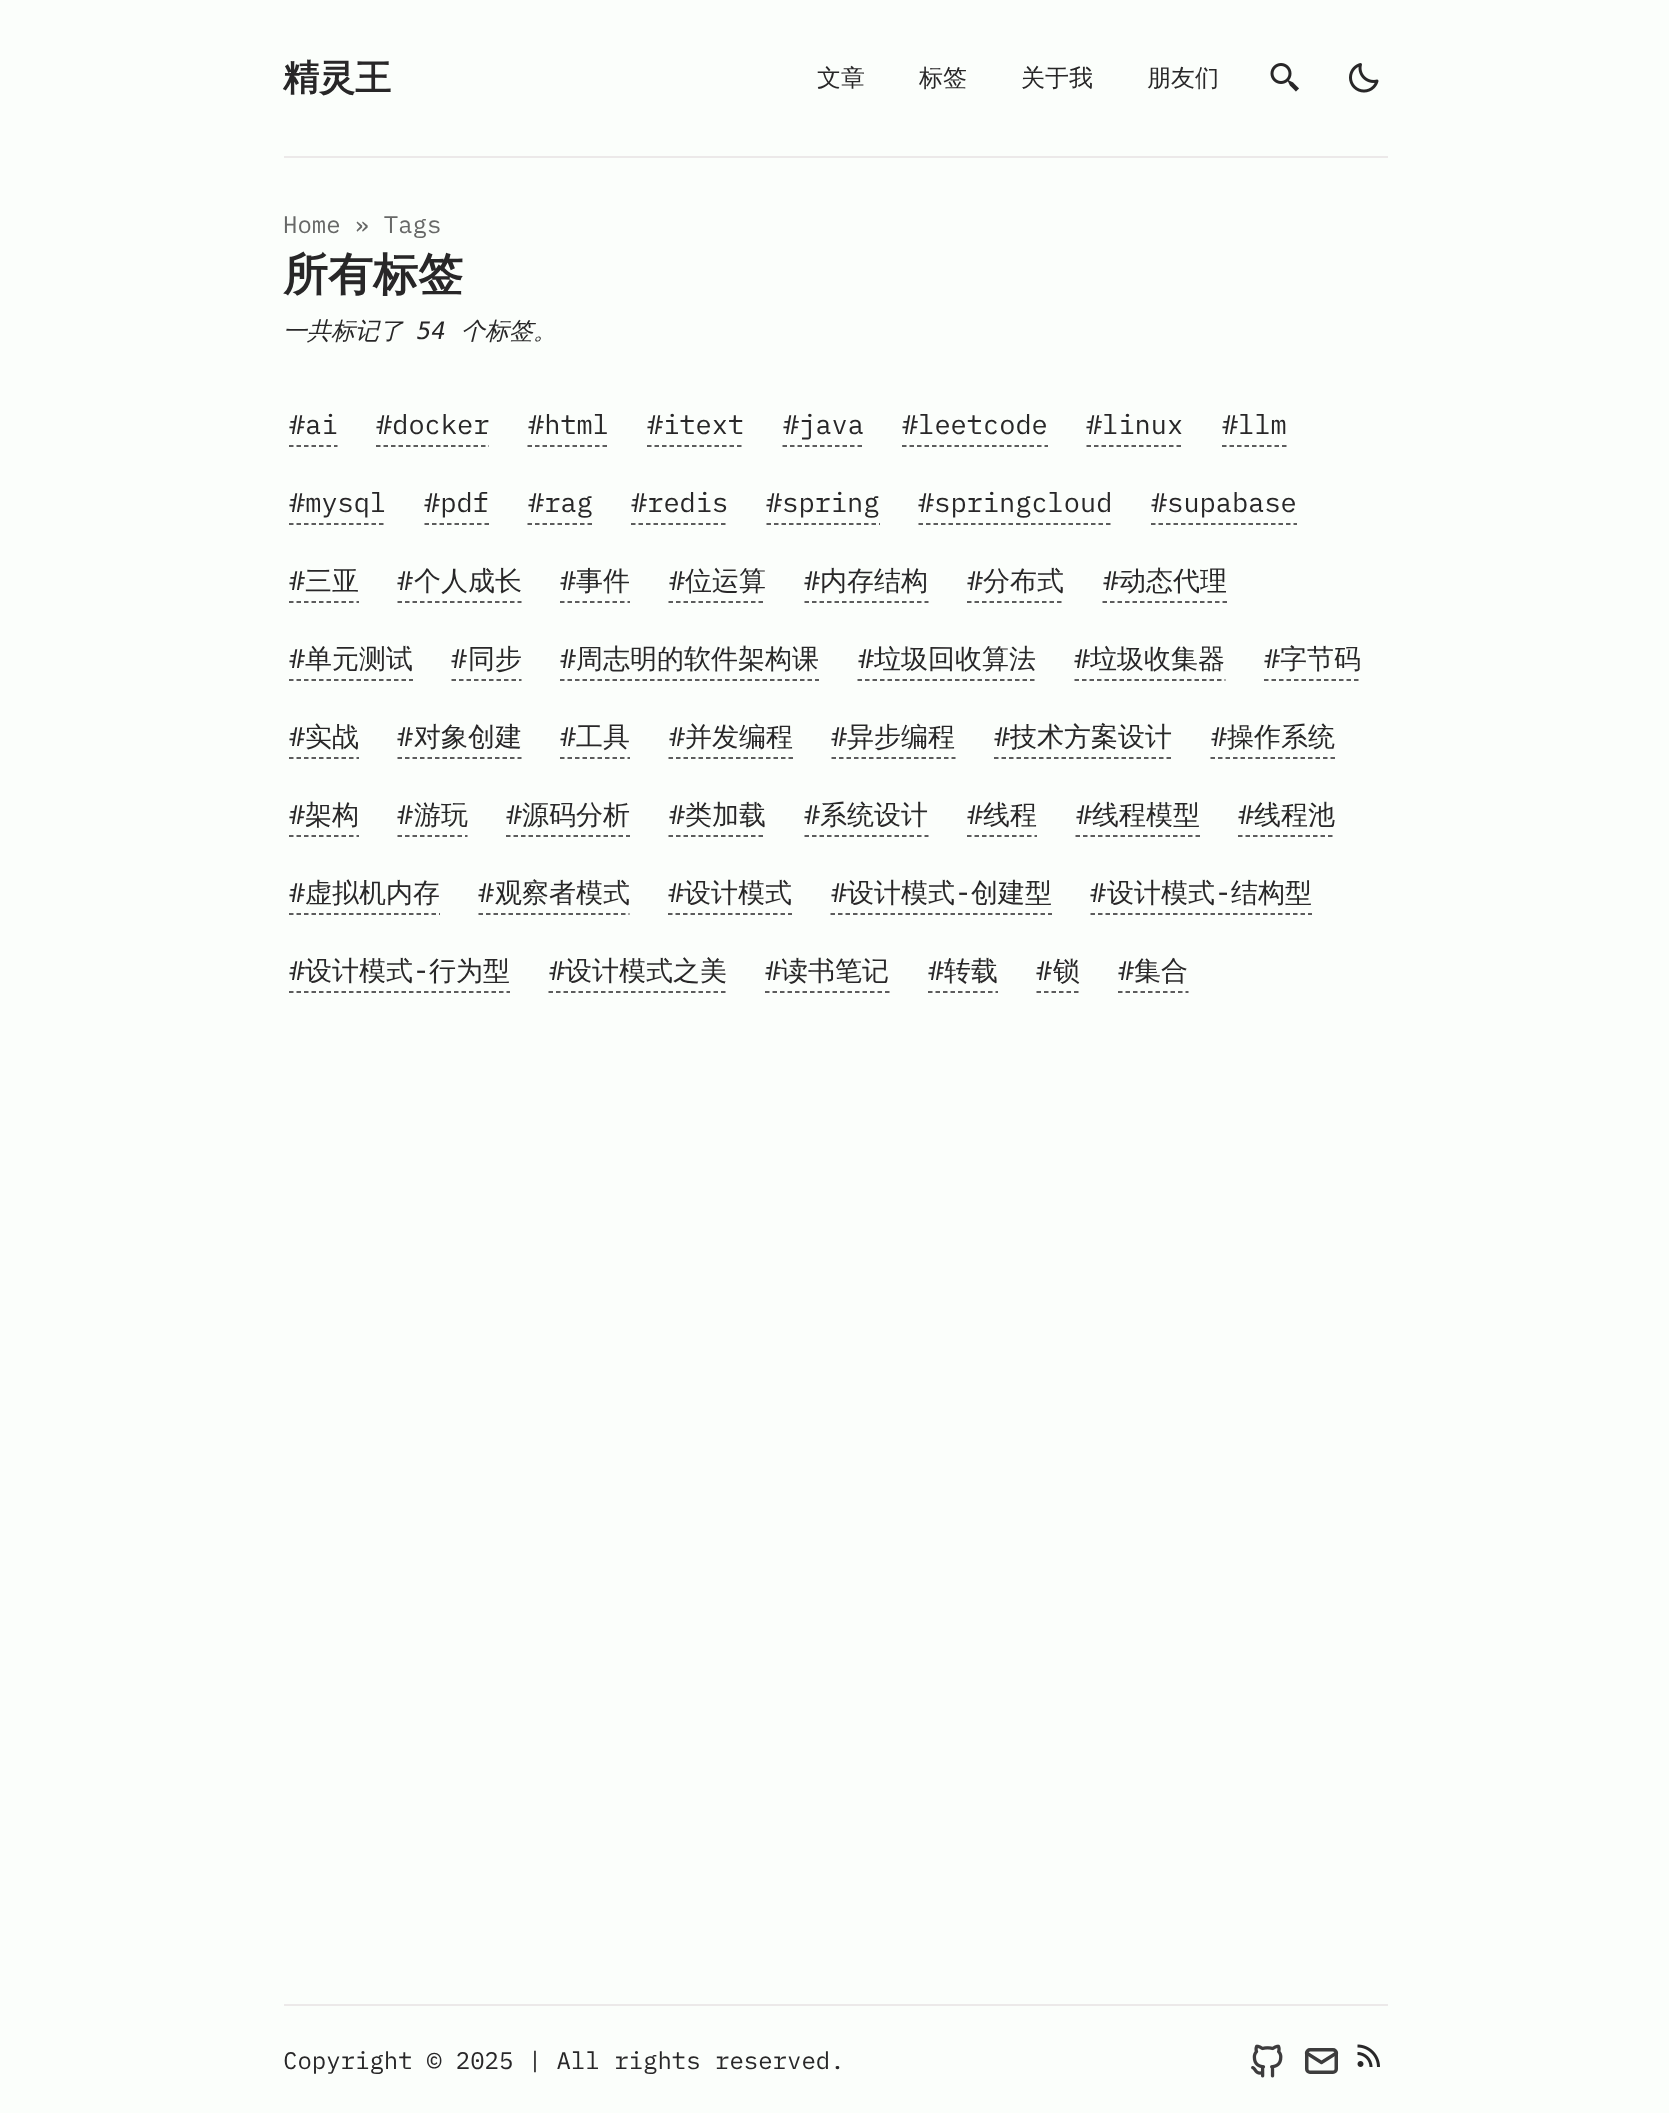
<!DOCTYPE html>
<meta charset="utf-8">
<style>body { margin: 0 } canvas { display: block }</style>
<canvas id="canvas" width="1669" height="2113"></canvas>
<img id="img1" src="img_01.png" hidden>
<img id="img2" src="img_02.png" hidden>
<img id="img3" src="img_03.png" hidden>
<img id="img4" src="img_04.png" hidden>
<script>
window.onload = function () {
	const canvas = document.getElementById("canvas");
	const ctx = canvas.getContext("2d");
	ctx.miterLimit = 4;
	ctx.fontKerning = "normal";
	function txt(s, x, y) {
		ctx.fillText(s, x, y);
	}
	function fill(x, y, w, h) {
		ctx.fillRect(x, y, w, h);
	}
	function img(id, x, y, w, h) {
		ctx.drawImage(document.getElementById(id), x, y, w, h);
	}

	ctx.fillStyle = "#FBFEFB";
	fill(0, 0, 1669, 2113);
	img("img1", 1270, 63, 29, 29);
	img("img2", 1349, 63, 30, 30);
	ctx.fillStyle = "#ECE9E9";
	fill(284, 156, 1104, 2);
	ctx.beginPath();
	ctx.moveTo(289, 446);
	ctx.lineTo(337.5, 446);
	ctx.strokeStyle = "#282728";
	ctx.lineWidth = 1.5;
	ctx.setLineDash([4.5, 3]);
	ctx.stroke();
	ctx.beginPath();
	ctx.moveTo(376, 446);
	ctx.lineTo(489, 446);
	ctx.stroke();
	ctx.beginPath();
	ctx.moveTo(527.5, 446);
	ctx.lineTo(608.5, 446);
	ctx.stroke();
	ctx.beginPath();
	ctx.moveTo(647, 446);
	ctx.lineTo(744, 446);
	ctx.stroke();
	ctx.beginPath();
	ctx.moveTo(782.5, 446);
	ctx.lineTo(863.5, 446);
	ctx.stroke();
	ctx.beginPath();
	ctx.moveTo(902, 446);
	ctx.lineTo(1048, 446);
	ctx.stroke();
	ctx.beginPath();
	ctx.moveTo(1086.5, 446);
	ctx.lineTo(1183.5, 446);
	ctx.stroke();
	ctx.beginPath();
	ctx.moveTo(1222, 446);
	ctx.lineTo(1286.5, 446);
	ctx.stroke();
	ctx.beginPath();
	ctx.moveTo(289, 524);
	ctx.lineTo(386, 524);
	ctx.stroke();
	ctx.beginPath();
	ctx.moveTo(424.5, 524);
	ctx.lineTo(489, 524);
	ctx.stroke();
	ctx.beginPath();
	ctx.moveTo(527.5, 524);
	ctx.lineTo(592.5, 524);
	ctx.stroke();
	ctx.beginPath();
	ctx.moveTo(631, 524);
	ctx.lineTo(728, 524);
	ctx.stroke();
	ctx.beginPath();
	ctx.moveTo(766.5, 524);
	ctx.lineTo(880, 524);
	ctx.stroke();
	ctx.beginPath();
	ctx.moveTo(918.5, 524);
	ctx.lineTo(1112.5, 524);
	ctx.stroke();
	ctx.beginPath();
	ctx.moveTo(1151, 524);
	ctx.lineTo(1297, 524);
	ctx.stroke();
	ctx.beginPath();
	ctx.moveTo(289, 602);
	ctx.lineTo(359, 602);
	ctx.stroke();
	ctx.beginPath();
	ctx.moveTo(397.5, 602);
	ctx.lineTo(521.5, 602);
	ctx.stroke();
	ctx.beginPath();
	ctx.moveTo(560, 602);
	ctx.lineTo(630, 602);
	ctx.stroke();
	ctx.beginPath();
	ctx.moveTo(668.5, 602);
	ctx.lineTo(766, 602);
	ctx.stroke();
	ctx.beginPath();
	ctx.moveTo(804.5, 602);
	ctx.lineTo(928.5, 602);
	ctx.stroke();
	ctx.beginPath();
	ctx.moveTo(967, 602);
	ctx.lineTo(1064, 602);
	ctx.stroke();
	ctx.beginPath();
	ctx.moveTo(1102.5, 602);
	ctx.lineTo(1227, 602);
	ctx.stroke();
	ctx.beginPath();
	ctx.moveTo(289, 680);
	ctx.lineTo(413, 680);
	ctx.stroke();
	ctx.beginPath();
	ctx.moveTo(451.5, 680);
	ctx.lineTo(521.5, 680);
	ctx.stroke();
	ctx.beginPath();
	ctx.moveTo(560, 680);
	ctx.lineTo(819, 680);
	ctx.stroke();
	ctx.beginPath();
	ctx.moveTo(857.5, 680);
	ctx.lineTo(1036, 680);
	ctx.stroke();
	ctx.beginPath();
	ctx.moveTo(1074.5, 680);
	ctx.lineTo(1225.5, 680);
	ctx.stroke();
	ctx.beginPath();
	ctx.moveTo(1264, 680);
	ctx.lineTo(1361, 680);
	ctx.stroke();
	ctx.beginPath();
	ctx.moveTo(289, 758);
	ctx.lineTo(359, 758);
	ctx.stroke();
	ctx.beginPath();
	ctx.moveTo(397.5, 758);
	ctx.lineTo(521.5, 758);
	ctx.stroke();
	ctx.beginPath();
	ctx.moveTo(560, 758);
	ctx.lineTo(630, 758);
	ctx.stroke();
	ctx.beginPath();
	ctx.moveTo(668.5, 758);
	ctx.lineTo(793, 758);
	ctx.stroke();
	ctx.beginPath();
	ctx.moveTo(831.5, 758);
	ctx.lineTo(955.5, 758);
	ctx.stroke();
	ctx.beginPath();
	ctx.moveTo(994, 758);
	ctx.lineTo(1172, 758);
	ctx.stroke();
	ctx.beginPath();
	ctx.moveTo(1210.5, 758);
	ctx.lineTo(1335, 758);
	ctx.stroke();
	ctx.beginPath();
	ctx.moveTo(289, 836);
	ctx.lineTo(359, 836);
	ctx.stroke();
	ctx.beginPath();
	ctx.moveTo(397.5, 836);
	ctx.lineTo(467.5, 836);
	ctx.stroke();
	ctx.beginPath();
	ctx.moveTo(506, 836);
	ctx.lineTo(630, 836);
	ctx.stroke();
	ctx.beginPath();
	ctx.moveTo(668.5, 836);
	ctx.lineTo(766, 836);
	ctx.stroke();
	ctx.beginPath();
	ctx.moveTo(804.5, 836);
	ctx.lineTo(928.5, 836);
	ctx.stroke();
	ctx.beginPath();
	ctx.moveTo(967, 836);
	ctx.lineTo(1037, 836);
	ctx.stroke();
	ctx.beginPath();
	ctx.moveTo(1075.5, 836);
	ctx.lineTo(1200, 836);
	ctx.stroke();
	ctx.beginPath();
	ctx.moveTo(1238, 836);
	ctx.lineTo(1335.5, 836);
	ctx.stroke();
	ctx.beginPath();
	ctx.moveTo(289, 914);
	ctx.lineTo(440, 914);
	ctx.stroke();
	ctx.beginPath();
	ctx.moveTo(478.5, 914);
	ctx.lineTo(629.5, 914);
	ctx.stroke();
	ctx.beginPath();
	ctx.moveTo(668, 914);
	ctx.lineTo(792, 914);
	ctx.stroke();
	ctx.beginPath();
	ctx.moveTo(830.5, 914);
	ctx.lineTo(1052, 914);
	ctx.stroke();
	ctx.beginPath();
	ctx.moveTo(1090.5, 914);
	ctx.lineTo(1312, 914);
	ctx.stroke();
	ctx.beginPath();
	ctx.moveTo(289, 992);
	ctx.lineTo(510, 992);
	ctx.stroke();
	ctx.beginPath();
	ctx.moveTo(548.5, 992);
	ctx.lineTo(727, 992);
	ctx.stroke();
	ctx.beginPath();
	ctx.moveTo(765, 992);
	ctx.lineTo(889.5, 992);
	ctx.stroke();
	ctx.beginPath();
	ctx.moveTo(928, 992);
	ctx.lineTo(998, 992);
	ctx.stroke();
	ctx.beginPath();
	ctx.moveTo(1036.5, 992);
	ctx.lineTo(1079.5, 992);
	ctx.stroke();
	ctx.beginPath();
	ctx.moveTo(1118, 992);
	ctx.lineTo(1188.5, 992);
	ctx.stroke();
	fill(284, 2004, 1104, 2);
	img("img3", 1251, 2044, 32, 34);
	ctx.beginPath();
	ctx.roundRect(1306.75, 2049.75, 29.5, 22.5, 3.25);
	ctx.strokeStyle = "#3D3D3D";
	ctx.lineWidth = 3.5;
	ctx.setLineDash([]);
	ctx.stroke();
	ctx.beginPath();
	ctx.moveTo(1306.5, 2053);
	ctx.lineTo(1321.5, 2062.5);
	ctx.lineTo(1336.5, 2053);
	ctx.lineWidth = 3.3;
	ctx.lineCap = "round";
	ctx.lineJoin = "round";
	ctx.stroke();
	img("img4", 1357, 2044, 23, 23);
	ctx.font = "bold 36px WenQuanYi Zen Hei";
	ctx.fillStyle = "#282728";
	txt("精灵王", 283, 90);
	ctx.font = "500 24px WenQuanYi Zen Hei";
	txt("文章", 817, 86);
	txt("标签", 919, 86);
	txt("关于我", 1021, 86);
	txt("朋友们", 1147, 86);
	ctx.font = "24px IBM Plex Mono";
	ctx.fillStyle = "#676867";
	txt("Home » Tags", 283, 233);
	ctx.font = "bold 45px WenQuanYi Zen Hei";
	ctx.fillStyle = "#282728";
	txt("所有标签", 283, 290);
	ctx.font = "italic 500 24px WenQuanYi Zen Hei";
	txt("一共标记了", 283, 339);
	ctx.font = "italic 24px DejaVu Sans Mono";
	txt("54", 417, 339);
	ctx.font = "italic 500 24px WenQuanYi Zen Hei";
	txt("个标签。", 461, 339);
	ctx.font = "27px IBM Plex Mono";
	txt("#ai", 289, 434);
	txt("#docker", 376, 434);
	txt("#html", 528, 434);
	txt("#itext", 647, 434);
	txt("#java", 783, 434);
	txt("#leetcode", 902, 434);
	txt("#linux", 1086, 434);
	txt("#llm", 1222, 434);
	txt("#mysql", 289, 512);
	txt("#pdf", 424, 512);
	txt("#rag", 528, 512);
	txt("#redis", 631, 512);
	txt("#spring", 766, 512);
	txt("#springcloud", 918, 512);
	txt("#supabase", 1151, 512);
	txt("#", 289, 590);
	ctx.font = "500 27px WenQuanYi Zen Hei";
	txt("三亚", 305, 590);
	ctx.font = "27px IBM Plex Mono";
	txt("#", 397, 590);
	ctx.font = "500 27px WenQuanYi Zen Hei";
	txt("个人成长", 414, 590);
	ctx.font = "27px IBM Plex Mono";
	txt("#", 560, 590);
	ctx.font = "500 27px WenQuanYi Zen Hei";
	txt("事件", 576, 590);
	ctx.font = "27px IBM Plex Mono";
	txt("#", 669, 590);
	ctx.font = "500 27px WenQuanYi Zen Hei";
	txt("位运算", 685, 590);
	ctx.font = "27px IBM Plex Mono";
	txt("#", 804, 590);
	ctx.font = "500 27px WenQuanYi Zen Hei";
	txt("内存结构", 820, 590);
	ctx.font = "27px IBM Plex Mono";
	txt("#", 967, 590);
	ctx.font = "500 27px WenQuanYi Zen Hei";
	txt("分布式", 983, 590);
	ctx.font = "27px IBM Plex Mono";
	txt("#", 1103, 590);
	ctx.font = "500 27px WenQuanYi Zen Hei";
	txt("动态代理", 1119, 590);
	ctx.font = "27px IBM Plex Mono";
	txt("#", 289, 668);
	ctx.font = "500 27px WenQuanYi Zen Hei";
	txt("单元测试", 305, 668);
	ctx.font = "27px IBM Plex Mono";
	txt("#", 451, 668);
	ctx.font = "500 27px WenQuanYi Zen Hei";
	txt("同步", 468, 668);
	ctx.font = "27px IBM Plex Mono";
	txt("#", 560, 668);
	ctx.font = "500 27px WenQuanYi Zen Hei";
	txt("周志明的软件架构课", 576, 668);
	ctx.font = "27px IBM Plex Mono";
	txt("#", 858, 668);
	ctx.font = "500 27px WenQuanYi Zen Hei";
	txt("垃圾回收算法", 874, 668);
	ctx.font = "27px IBM Plex Mono";
	txt("#", 1074, 668);
	ctx.font = "500 27px WenQuanYi Zen Hei";
	txt("垃圾收集器", 1090, 668);
	ctx.font = "27px IBM Plex Mono";
	txt("#", 1264, 668);
	ctx.font = "500 27px WenQuanYi Zen Hei";
	txt("字节码", 1280, 668);
	ctx.font = "27px IBM Plex Mono";
	txt("#", 289, 746);
	ctx.font = "500 27px WenQuanYi Zen Hei";
	txt("实战", 305, 746);
	ctx.font = "27px IBM Plex Mono";
	txt("#", 397, 746);
	ctx.font = "500 27px WenQuanYi Zen Hei";
	txt("对象创建", 414, 746);
	ctx.font = "27px IBM Plex Mono";
	txt("#", 560, 746);
	ctx.font = "500 27px WenQuanYi Zen Hei";
	txt("工具", 576, 746);
	ctx.font = "27px IBM Plex Mono";
	txt("#", 669, 746);
	ctx.font = "500 27px WenQuanYi Zen Hei";
	txt("并发编程", 685, 746);
	ctx.font = "27px IBM Plex Mono";
	txt("#", 831, 746);
	ctx.font = "500 27px WenQuanYi Zen Hei";
	txt("异步编程", 847, 746);
	ctx.font = "27px IBM Plex Mono";
	txt("#", 994, 746);
	ctx.font = "500 27px WenQuanYi Zen Hei";
	txt("技术方案设计", 1010, 746);
	ctx.font = "27px IBM Plex Mono";
	txt("#", 1211, 746);
	ctx.font = "500 27px WenQuanYi Zen Hei";
	txt("操作系统", 1227, 746);
	ctx.font = "27px IBM Plex Mono";
	txt("#", 289, 824);
	ctx.font = "500 27px WenQuanYi Zen Hei";
	txt("架构", 305, 824);
	ctx.font = "27px IBM Plex Mono";
	txt("#", 397, 824);
	ctx.font = "500 27px WenQuanYi Zen Hei";
	txt("游玩", 414, 824);
	ctx.font = "27px IBM Plex Mono";
	txt("#", 506, 824);
	ctx.font = "500 27px WenQuanYi Zen Hei";
	txt("源码分析", 522, 824);
	ctx.font = "27px IBM Plex Mono";
	txt("#", 669, 824);
	ctx.font = "500 27px WenQuanYi Zen Hei";
	txt("类加载", 685, 824);
	ctx.font = "27px IBM Plex Mono";
	txt("#", 804, 824);
	ctx.font = "500 27px WenQuanYi Zen Hei";
	txt("系统设计", 820, 824);
	ctx.font = "27px IBM Plex Mono";
	txt("#", 967, 824);
	ctx.font = "500 27px WenQuanYi Zen Hei";
	txt("线程", 983, 824);
	ctx.font = "27px IBM Plex Mono";
	txt("#", 1076, 824);
	ctx.font = "500 27px WenQuanYi Zen Hei";
	txt("线程模型", 1092, 824);
	ctx.font = "27px IBM Plex Mono";
	txt("#", 1238, 824);
	ctx.font = "500 27px WenQuanYi Zen Hei";
	txt("线程池", 1254, 824);
	ctx.font = "27px IBM Plex Mono";
	txt("#", 289, 902);
	ctx.font = "500 27px WenQuanYi Zen Hei";
	txt("虚拟机内存", 305, 902);
	ctx.font = "27px IBM Plex Mono";
	txt("#", 478, 902);
	ctx.font = "500 27px WenQuanYi Zen Hei";
	txt("观察者模式", 495, 902);
	ctx.font = "27px IBM Plex Mono";
	txt("#", 668, 902);
	ctx.font = "500 27px WenQuanYi Zen Hei";
	txt("设计模式", 684, 902);
	ctx.font = "27px IBM Plex Mono";
	txt("#", 831, 902);
	ctx.font = "500 27px WenQuanYi Zen Hei";
	txt("设计模式", 847, 902);
	ctx.font = "27px IBM Plex Mono";
	txt("-", 955, 902);
	ctx.font = "500 27px WenQuanYi Zen Hei";
	txt("创建型", 971, 902);
	ctx.font = "27px IBM Plex Mono";
	txt("#", 1090, 902);
	ctx.font = "500 27px WenQuanYi Zen Hei";
	txt("设计模式", 1107, 902);
	ctx.font = "27px IBM Plex Mono";
	txt("-", 1215, 902);
	ctx.font = "500 27px WenQuanYi Zen Hei";
	txt("结构型", 1231, 902);
	ctx.font = "27px IBM Plex Mono";
	txt("#", 289, 980);
	ctx.font = "500 27px WenQuanYi Zen Hei";
	txt("设计模式", 305, 980);
	ctx.font = "27px IBM Plex Mono";
	txt("-", 413, 980);
	ctx.font = "500 27px WenQuanYi Zen Hei";
	txt("行为型", 429, 980);
	ctx.font = "27px IBM Plex Mono";
	txt("#", 549, 980);
	ctx.font = "500 27px WenQuanYi Zen Hei";
	txt("设计模式之美", 565, 980);
	ctx.font = "27px IBM Plex Mono";
	txt("#", 765, 980);
	ctx.font = "500 27px WenQuanYi Zen Hei";
	txt("读书笔记", 781, 980);
	ctx.font = "27px IBM Plex Mono";
	txt("#", 928, 980);
	ctx.font = "500 27px WenQuanYi Zen Hei";
	txt("转载", 944, 980);
	ctx.font = "27px IBM Plex Mono";
	txt("#", 1036, 980);
	ctx.font = "500 27px WenQuanYi Zen Hei";
	txt("锁", 1053, 980);
	ctx.font = "27px IBM Plex Mono";
	txt("#", 1118, 980);
	ctx.font = "500 27px WenQuanYi Zen Hei";
	txt("集合", 1134, 980);
	ctx.font = "24px IBM Plex Mono";
	txt("Copyright © 2025 | All rights reserved.", 283, 2069);
};
</script>
